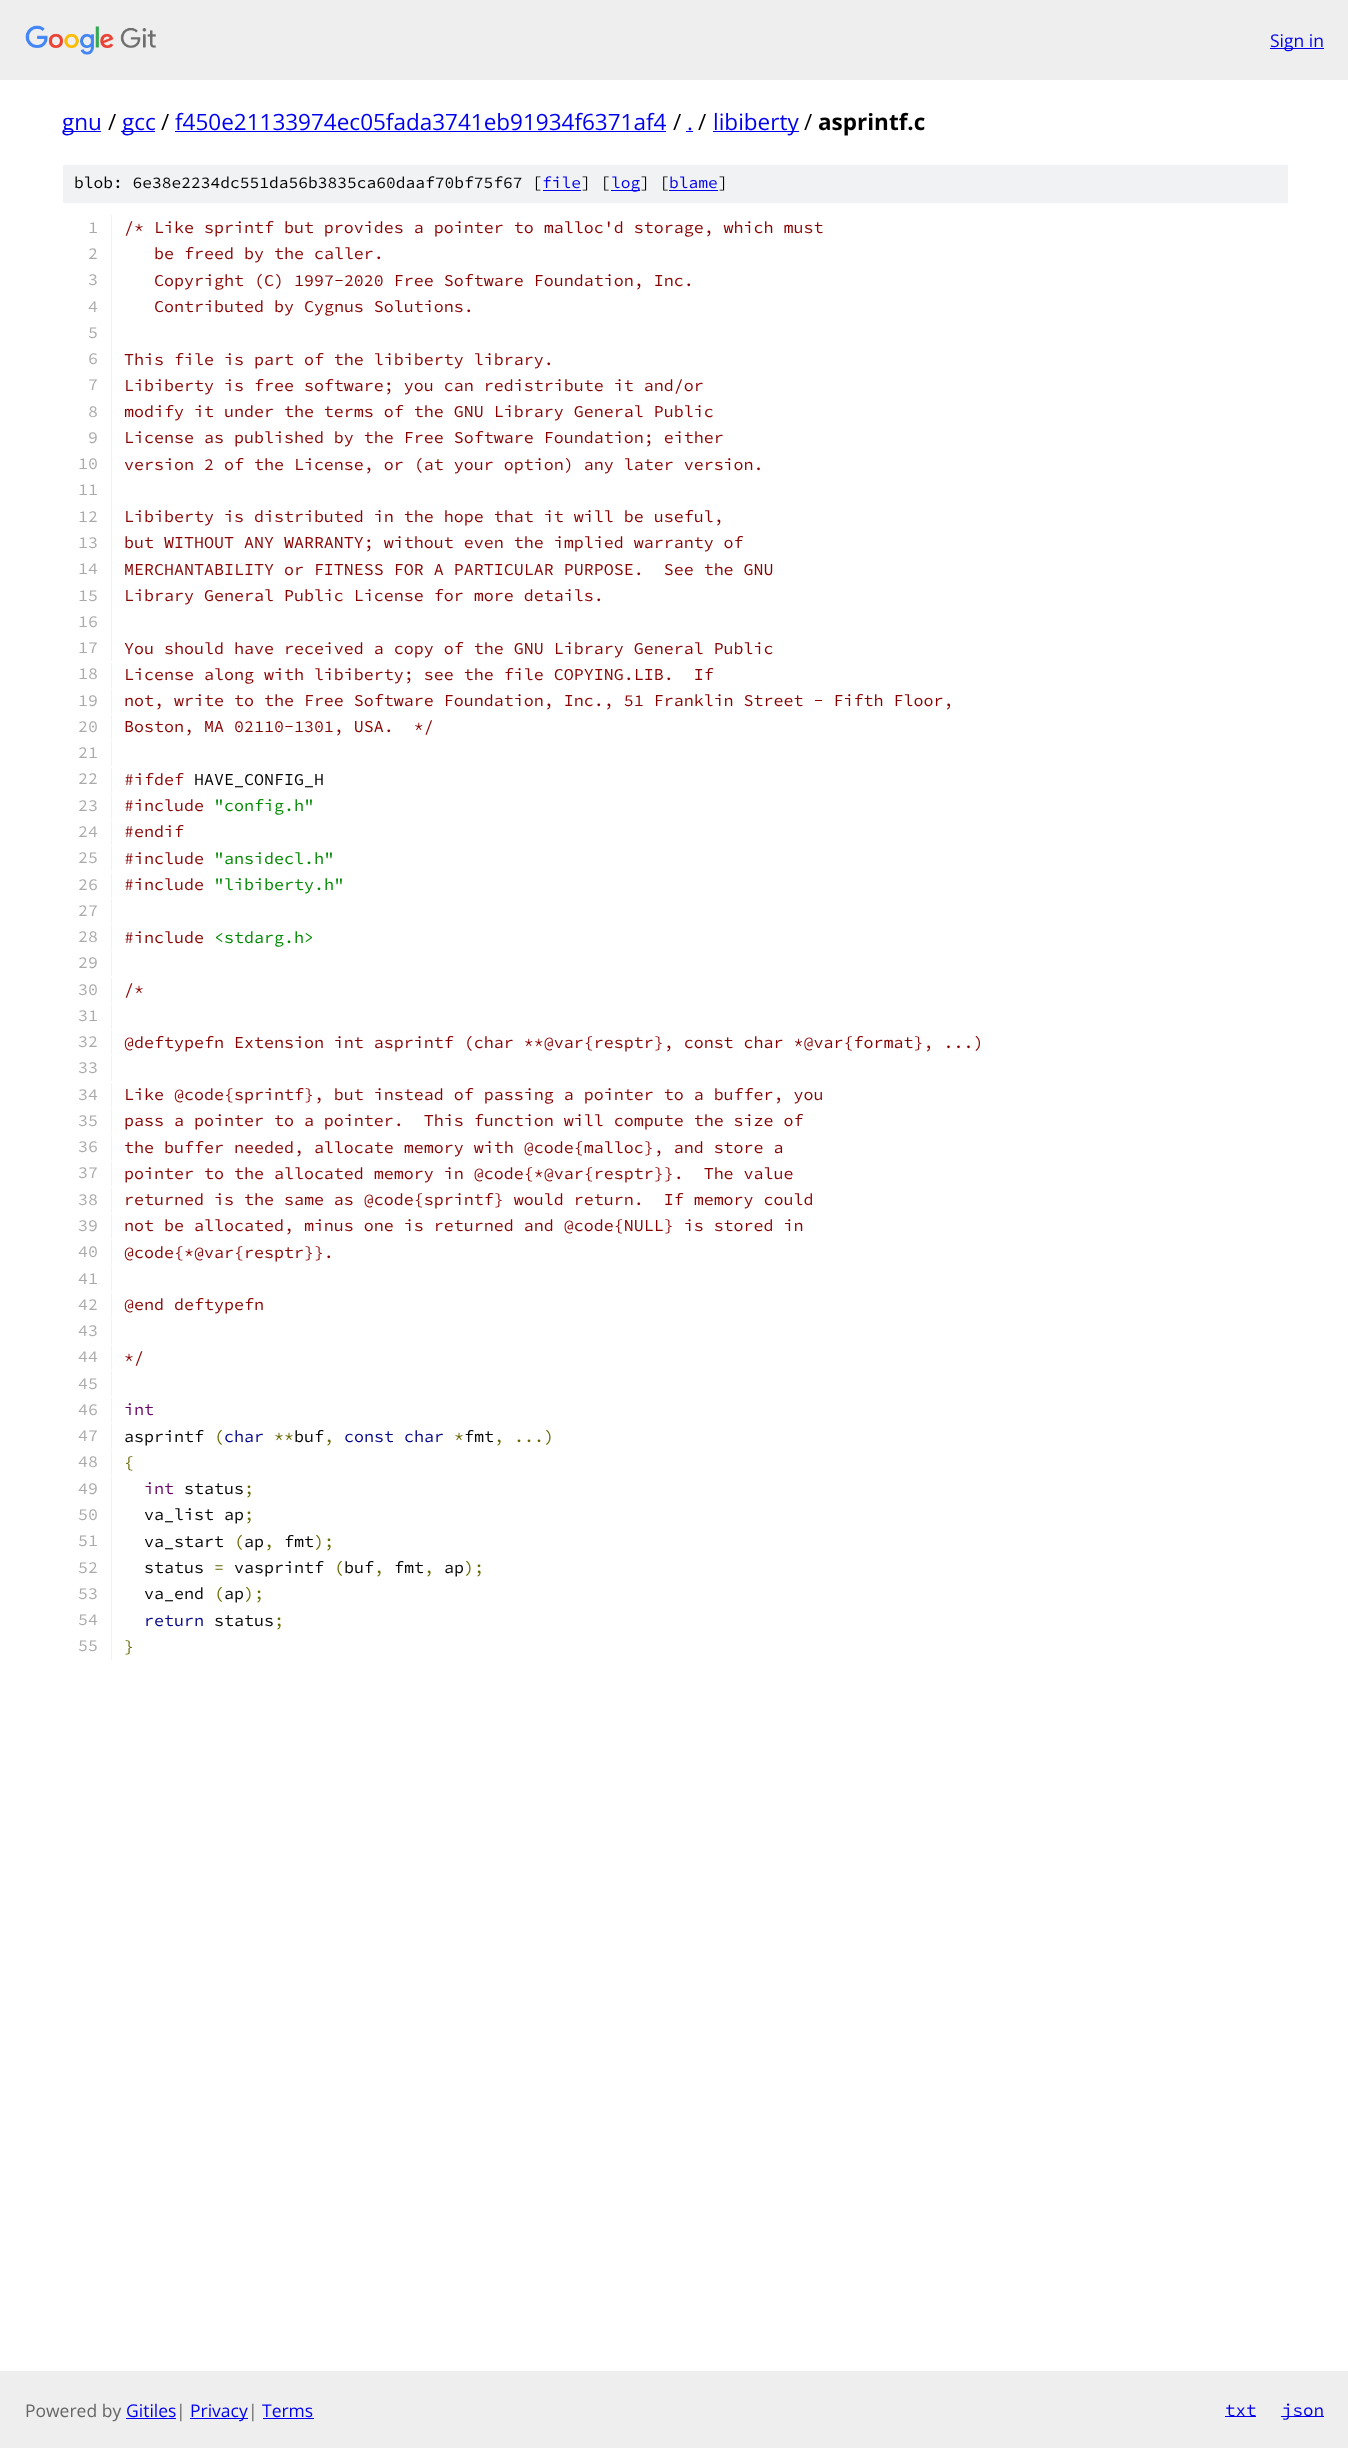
<!DOCTYPE html>
<meta charset="utf-8">
<style>body { margin: 0 } canvas { display: block }</style>
<canvas id="canvas" width="1348" height="2448"></canvas>
<img id="img1" src="img_01.png" hidden>
<script>
window.onload = function () {
	const canvas = document.getElementById("canvas");
	const ctx = canvas.getContext("2d");
	ctx.miterLimit = 4;
	ctx.fontKerning = "normal";
	function txt(s, x, y) {
		ctx.fillText(s, x, y);
	}
	function fill(x, y, w, h) {
		ctx.fillRect(x, y, w, h);
	}
	function img(id, x, y, w, h) {
		ctx.drawImage(document.getElementById(id), x, y, w, h);
	}

	ctx.fillStyle = "#FFFFFF";
	fill(0, 0, 1348, 2448);
	ctx.fillStyle = "#EEEEEE";
	fill(0, 0, 1348, 80);
	img("img1", 25, 25, 131, 30);
	ctx.fillStyle = "#0000EE";
	fill(1270, 48, 54, 1);
	fill(63, 131, 38, 1);
	fill(121, 131, 34, 1);
	fill(175, 131, 491, 1);
	fill(686, 131, 7, 1);
	fill(713, 131, 86, 1);
	ctx.fillStyle = "#F1F2F3";
	fill(63, 165, 1225, 38);
	ctx.fillStyle = "#0000EE";
	fill(543, 190, 38, 1);
	fill(611, 190, 29, 1);
	fill(669, 190, 49, 1);
	ctx.fillStyle = "#F1F2F3";
	fill(111, 215, 1, 446);
	fill(111, 663, 1, 25);
	fill(111, 689, 1, 25);
	fill(111, 715, 1, 25);
	fill(111, 741, 1, 25);
	fill(111, 768, 1, 25);
	fill(111, 794, 1, 25);
	fill(111, 820, 1, 25);
	fill(111, 846, 1, 25);
	fill(111, 873, 1, 25);
	fill(111, 899, 1, 25);
	fill(111, 925, 1, 25);
	fill(111, 951, 1, 25);
	fill(111, 978, 1, 25);
	fill(111, 1004, 1, 25);
	fill(111, 1030, 1, 25);
	fill(111, 1056, 1, 25);
	fill(111, 1083, 1, 25);
	fill(111, 1109, 1, 25);
	fill(111, 1135, 1, 25);
	fill(111, 1161, 1, 25);
	fill(111, 1188, 1, 25);
	fill(111, 1214, 1, 25);
	fill(111, 1240, 1, 25);
	fill(111, 1266, 1, 25);
	fill(111, 1293, 1, 25);
	fill(111, 1319, 1, 25);
	fill(111, 1345, 1, 25);
	fill(111, 1371, 1, 25);
	fill(111, 1398, 1, 25);
	fill(111, 1424, 1, 25);
	fill(111, 1450, 1, 25);
	fill(111, 1476, 1, 184);
	ctx.fillStyle = "#EEEEEE";
	fill(0, 2371, 1348, 77);
	ctx.fillStyle = "#0000EE";
	fill(126, 2418, 50, 1);
	fill(190, 2418, 58, 1);
	fill(263, 2418, 51, 1);
	fill(1225, 2416, 31, 1);
	fill(1281, 2416, 43, 1);
	ctx.font = "17.5px Open Sans";
	txt("Sign in", 1270, 47);
	ctx.font = "22.5px Open Sans";
	txt("gnu", 62, 130);
	ctx.fillStyle = "#000000";
	txt("/", 108, 130);
	ctx.fillStyle = "#0000EE";
	txt("gcc", 122, 130);
	ctx.fillStyle = "#000000";
	txt("/", 161, 130);
	ctx.fillStyle = "#0000EE";
	txt("f450e21133974ec05fada3741eb91934f6371af4", 175, 130);
	ctx.fillStyle = "#000000";
	txt("/", 673, 130);
	ctx.fillStyle = "#0000EE";
	txt(".", 687, 130);
	ctx.fillStyle = "#000000";
	txt("/", 698, 130);
	ctx.fillStyle = "#0000EE";
	txt("libiberty", 713, 130);
	ctx.fillStyle = "#000000";
	txt("/", 804, 130);
	ctx.font = "bold 22.5px Open Sans";
	txt("asprintf.c", 818, 130);
	ctx.font = "200 16.25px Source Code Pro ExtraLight";
	txt("blob: 6e38e2234dc551da56b3835ca60daaf70bf75f67 [", 74, 188);
	ctx.fillStyle = "#0000EE";
	txt("file", 542, 188);
	ctx.fillStyle = "#000000";
	txt("] [", 581, 188);
	ctx.fillStyle = "#0000EE";
	txt("log", 611, 188);
	ctx.fillStyle = "#000000";
	txt("] [", 640, 188);
	ctx.fillStyle = "#0000EE";
	txt("blame", 669, 188);
	ctx.fillStyle = "#000000";
	txt("]", 718, 188);
	ctx.font = "200 16.67px Source Code Pro ExtraLight";
	ctx.fillStyle = "#AAAAAA";
	txt("1", 88, 233);
	ctx.fillStyle = "#880000";
	txt("/* Like sprintf but provides a pointer to malloc'd storage, which must", 124, 233);
	ctx.fillStyle = "#AAAAAA";
	txt("2", 88, 259);
	ctx.fillStyle = "#880000";
	txt("be freed by the caller.", 154, 259);
	ctx.fillStyle = "#AAAAAA";
	txt("3", 88, 285);
	ctx.fillStyle = "#880000";
	txt("Copyright (C) 1997-2020 Free Software Foundation, Inc.", 154, 286);
	ctx.fillStyle = "#AAAAAA";
	txt("4", 88, 312);
	ctx.fillStyle = "#880000";
	txt("Contributed by Cygnus Solutions.", 154, 312);
	ctx.fillStyle = "#AAAAAA";
	txt("5", 88, 338);
	txt("6", 88, 364);
	ctx.fillStyle = "#880000";
	txt("This file is part of the libiberty library.", 124, 365);
	ctx.fillStyle = "#AAAAAA";
	txt("7", 88, 390);
	ctx.fillStyle = "#880000";
	txt("Libiberty is free software; you can redistribute it and/or", 124, 391);
	ctx.fillStyle = "#AAAAAA";
	txt("8", 88, 417);
	ctx.fillStyle = "#880000";
	txt("modify it under the terms of the GNU Library General Public", 124, 417);
	ctx.fillStyle = "#AAAAAA";
	txt("9", 88, 443);
	ctx.fillStyle = "#880000";
	txt("License as published by the Free Software Foundation; either", 124, 443);
	ctx.fillStyle = "#AAAAAA";
	txt("10", 78, 469);
	ctx.fillStyle = "#880000";
	txt("version 2 of the License, or (at your option) any later version.", 124, 470);
	ctx.fillStyle = "#AAAAAA";
	txt("11", 78, 495);
	txt("12", 78, 522);
	ctx.fillStyle = "#880000";
	txt("Libiberty is distributed in the hope that it will be useful,", 124, 522);
	ctx.fillStyle = "#AAAAAA";
	txt("13", 78, 548);
	ctx.fillStyle = "#880000";
	txt("but WITHOUT ANY WARRANTY; without even the implied warranty of", 124, 548);
	ctx.fillStyle = "#AAAAAA";
	txt("14", 78, 574);
	ctx.fillStyle = "#880000";
	txt("MERCHANTABILITY or FITNESS FOR A PARTICULAR PURPOSE.  See the GNU", 124, 575);
	ctx.fillStyle = "#AAAAAA";
	txt("15", 78, 601);
	ctx.fillStyle = "#880000";
	txt("Library General Public License for more details.", 124, 601);
	ctx.fillStyle = "#AAAAAA";
	txt("16", 78, 627);
	txt("17", 78, 653);
	ctx.fillStyle = "#880000";
	txt("You should have received a copy of the GNU Library General Public", 124, 654);
	ctx.fillStyle = "#AAAAAA";
	txt("18", 78, 679);
	ctx.fillStyle = "#880000";
	txt("License along with libiberty; see the file COPYING.LIB.  If", 124, 680);
	ctx.fillStyle = "#AAAAAA";
	txt("19", 78, 706);
	ctx.fillStyle = "#880000";
	txt("not, write to the Free Software Foundation, Inc., 51 Franklin Street - Fifth Floor,", 124, 706);
	ctx.fillStyle = "#AAAAAA";
	txt("20", 78, 732);
	ctx.fillStyle = "#880000";
	txt("Boston, MA 02110-1301, USA.  */", 124, 732);
	ctx.fillStyle = "#AAAAAA";
	txt("21", 78, 758);
	txt("22", 78, 784);
	ctx.fillStyle = "#880000";
	txt("#ifdef", 124, 785);
	ctx.fillStyle = "#000000";
	txt("HAVE_CONFIG_H", 194, 785);
	ctx.fillStyle = "#AAAAAA";
	txt("23", 78, 811);
	ctx.fillStyle = "#880000";
	txt("#include", 124, 811);
	ctx.fillStyle = "#008800";
	txt("\"config.h\"", 214, 811);
	ctx.fillStyle = "#AAAAAA";
	txt("24", 78, 837);
	ctx.fillStyle = "#880000";
	txt("#endif", 124, 837);
	ctx.fillStyle = "#AAAAAA";
	txt("25", 78, 863);
	ctx.fillStyle = "#880000";
	txt("#include", 124, 864);
	ctx.fillStyle = "#008800";
	txt("\"ansidecl.h\"", 214, 864);
	ctx.fillStyle = "#AAAAAA";
	txt("26", 78, 890);
	ctx.fillStyle = "#880000";
	txt("#include", 124, 890);
	ctx.fillStyle = "#008800";
	txt("\"libiberty.h\"", 214, 890);
	ctx.fillStyle = "#AAAAAA";
	txt("27", 78, 916);
	txt("28", 78, 942);
	ctx.fillStyle = "#880000";
	txt("#include", 124, 943);
	ctx.fillStyle = "#008800";
	txt("<stdarg.h>", 214, 943);
	ctx.fillStyle = "#AAAAAA";
	txt("29", 78, 968);
	txt("30", 78, 995);
	ctx.fillStyle = "#880000";
	txt("/*", 124, 995);
	ctx.fillStyle = "#AAAAAA";
	txt("31", 78, 1021);
	txt("32", 78, 1047);
	ctx.fillStyle = "#880000";
	txt("@deftypefn Extension int asprintf (char **@var{resptr}, const char *@var{format}, ...)", 124, 1048);
	ctx.fillStyle = "#AAAAAA";
	txt("33", 78, 1073);
	txt("34", 78, 1100);
	ctx.fillStyle = "#880000";
	txt("Like @code{sprintf}, but instead of passing a pointer to a buffer, you", 124, 1100);
	ctx.fillStyle = "#AAAAAA";
	txt("35", 78, 1126);
	ctx.fillStyle = "#880000";
	txt("pass a pointer to a pointer.  This function will compute the size of", 124, 1126);
	ctx.fillStyle = "#AAAAAA";
	txt("36", 78, 1152);
	ctx.fillStyle = "#880000";
	txt("the buffer needed, allocate memory with @code{malloc}, and store a", 124, 1153);
	ctx.fillStyle = "#AAAAAA";
	txt("37", 78, 1178);
	ctx.fillStyle = "#880000";
	txt("pointer to the allocated memory in @code{*@var{resptr}}.  The value", 124, 1179);
	ctx.fillStyle = "#AAAAAA";
	txt("38", 78, 1205);
	ctx.fillStyle = "#880000";
	txt("returned is the same as @code{sprintf} would return.  If memory could", 124, 1205);
	ctx.fillStyle = "#AAAAAA";
	txt("39", 78, 1231);
	ctx.fillStyle = "#880000";
	txt("not be allocated, minus one is returned and @code{NULL} is stored in", 124, 1231);
	ctx.fillStyle = "#AAAAAA";
	txt("40", 78, 1257);
	ctx.fillStyle = "#880000";
	txt("@code{*@var{resptr}}.", 124, 1258);
	ctx.fillStyle = "#AAAAAA";
	txt("41", 78, 1284);
	txt("42", 78, 1310);
	ctx.fillStyle = "#880000";
	txt("@end deftypefn", 124, 1310);
	ctx.fillStyle = "#AAAAAA";
	txt("43", 78, 1336);
	txt("44", 78, 1362);
	ctx.fillStyle = "#880000";
	txt("*/", 124, 1363);
	ctx.fillStyle = "#AAAAAA";
	txt("45", 78, 1389);
	txt("46", 78, 1415);
	ctx.fillStyle = "#660066";
	txt("int", 124, 1415);
	ctx.fillStyle = "#AAAAAA";
	txt("47", 78, 1441);
	ctx.fillStyle = "#000000";
	txt("asprintf", 124, 1442);
	ctx.fillStyle = "#666600";
	txt("(", 214, 1442);
	ctx.fillStyle = "#000088";
	txt("char", 224, 1442);
	ctx.fillStyle = "#666600";
	txt("**", 274, 1442);
	ctx.fillStyle = "#000000";
	txt("buf", 294, 1442);
	ctx.fillStyle = "#000088";
	txt("const char", 344, 1442);
	ctx.fillStyle = "#666600";
	txt("*", 454, 1442);
	ctx.fillStyle = "#000000";
	txt("fmt", 464, 1442);
	ctx.fillStyle = "#666600";
	txt(", ...)", 494, 1442);
	txt(",", 324, 1442);
	ctx.fillStyle = "#AAAAAA";
	txt("48", 78, 1467);
	ctx.fillStyle = "#666600";
	txt("{", 124, 1468);
	ctx.fillStyle = "#AAAAAA";
	txt("49", 78, 1494);
	ctx.fillStyle = "#660066";
	txt("int", 144, 1494);
	ctx.fillStyle = "#000000";
	txt("status", 184, 1494);
	ctx.fillStyle = "#666600";
	txt(";", 244, 1494);
	ctx.fillStyle = "#AAAAAA";
	txt("50", 78, 1520);
	ctx.fillStyle = "#000000";
	txt("va_list ap", 144, 1520);
	ctx.fillStyle = "#666600";
	txt(";", 244, 1520);
	ctx.fillStyle = "#AAAAAA";
	txt("51", 78, 1546);
	ctx.fillStyle = "#000000";
	txt("va_start", 144, 1547);
	ctx.fillStyle = "#666600";
	txt("(", 234, 1547);
	ctx.fillStyle = "#000000";
	txt("ap", 244, 1547);
	ctx.fillStyle = "#666600";
	txt(",", 264, 1547);
	ctx.fillStyle = "#000000";
	txt("fmt", 284, 1547);
	ctx.fillStyle = "#666600";
	txt(");", 314, 1547);
	ctx.fillStyle = "#AAAAAA";
	txt("52", 78, 1573);
	ctx.fillStyle = "#000000";
	txt("status", 144, 1573);
	ctx.fillStyle = "#666600";
	txt("=", 214, 1573);
	ctx.fillStyle = "#000000";
	txt("vasprintf", 234, 1573);
	ctx.fillStyle = "#666600";
	txt("(", 334, 1573);
	ctx.fillStyle = "#000000";
	txt("buf", 344, 1573);
	txt("fmt", 394, 1573);
	txt("ap", 444, 1573);
	ctx.fillStyle = "#666600";
	txt(");", 464, 1573);
	txt(",", 374, 1573);
	txt(",", 424, 1573);
	ctx.fillStyle = "#AAAAAA";
	txt("53", 78, 1599);
	ctx.fillStyle = "#000000";
	txt("va_end", 144, 1599);
	ctx.fillStyle = "#666600";
	txt("(", 214, 1599);
	ctx.fillStyle = "#000000";
	txt("ap", 224, 1599);
	ctx.fillStyle = "#666600";
	txt(");", 244, 1599);
	ctx.fillStyle = "#AAAAAA";
	txt("54", 78, 1625);
	ctx.fillStyle = "#000088";
	txt("return", 144, 1626);
	ctx.fillStyle = "#000000";
	txt("status", 214, 1626);
	ctx.fillStyle = "#666600";
	txt(";", 274, 1626);
	ctx.fillStyle = "#AAAAAA";
	txt("55", 78, 1651);
	ctx.fillStyle = "#666600";
	txt("}", 124, 1652);
	ctx.font = "17.5px Open Sans";
	ctx.fillStyle = "#666666";
	txt("Powered by", 25, 2417);
	ctx.fillStyle = "#0000EE";
	txt("Gitiles", 126, 2417);
	ctx.fillStyle = "#666666";
	txt("|", 176, 2417);
	ctx.fillStyle = "#0000EE";
	txt("Privacy", 190, 2417);
	ctx.fillStyle = "#666666";
	txt("|", 248, 2417);
	ctx.fillStyle = "#0000EE";
	txt("Terms", 262, 2417);
	ctx.font = "200 17.5px Source Code Pro ExtraLight";
	txt("txt", 1225, 2416);
	txt("json", 1282, 2416);
};
</script>
